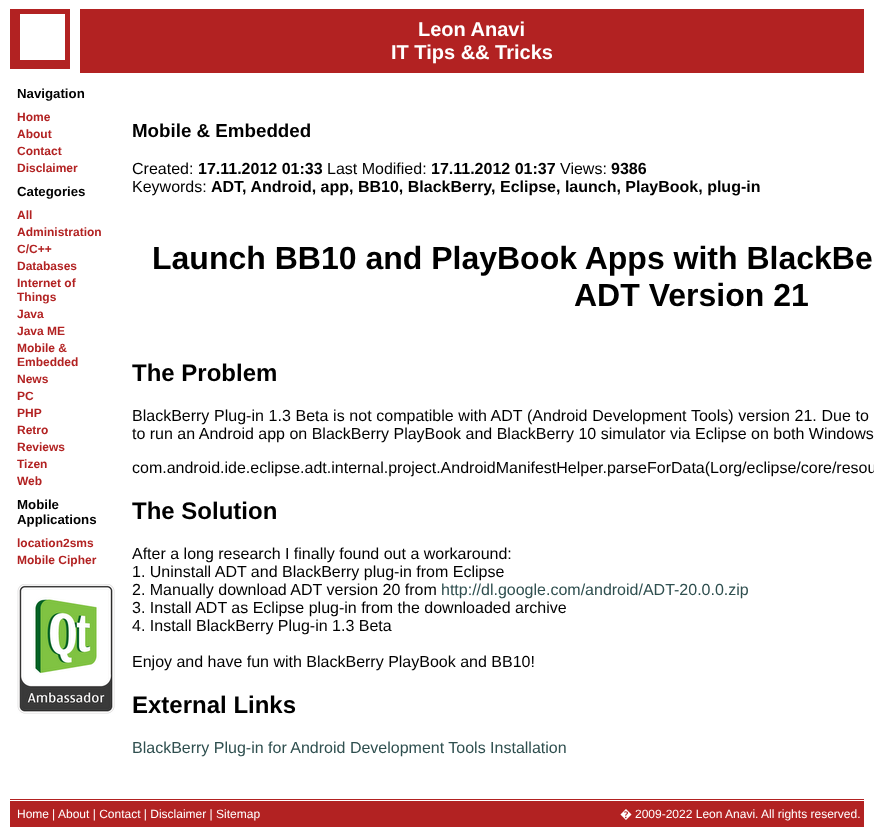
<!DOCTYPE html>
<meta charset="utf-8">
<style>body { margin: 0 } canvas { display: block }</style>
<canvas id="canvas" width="874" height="828"></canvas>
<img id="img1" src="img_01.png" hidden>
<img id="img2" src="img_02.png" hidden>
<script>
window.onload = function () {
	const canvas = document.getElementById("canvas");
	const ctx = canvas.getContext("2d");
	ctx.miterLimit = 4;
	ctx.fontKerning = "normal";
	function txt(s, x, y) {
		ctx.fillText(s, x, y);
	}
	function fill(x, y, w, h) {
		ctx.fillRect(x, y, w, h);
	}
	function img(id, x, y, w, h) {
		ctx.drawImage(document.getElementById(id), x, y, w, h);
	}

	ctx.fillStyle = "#FFFFFF";
	fill(0, 0, 874, 828);
	img("img1", 10, 9, 60, 60);
	ctx.fillStyle = "#B22222";
	fill(80, 9, 784, 64);
	img("img2", 17, 584, 98, 130);
	fill(10, 799, 854, 28);
	ctx.fillStyle = "#FFFFFF";
	fill(10, 800, 854, 1);
	ctx.font = "bold 20px Liberation Sans";
	txt("Leon Anavi", 418, 36);
	txt("IT Tips && Tricks", 391, 59);
	ctx.font = "bold 13.25px Liberation Sans";
	ctx.fillStyle = "#000000";
	txt("Navigation", 17, 98);
	ctx.font = "bold 12px Liberation Sans";
	ctx.fillStyle = "#B22222";
	txt("Home", 17, 121);
	txt("About", 17, 138);
	txt("Contact", 17, 155);
	txt("Disclaimer", 17, 172);
	ctx.font = "bold 13.25px Liberation Sans";
	ctx.fillStyle = "#000000";
	txt("Categories", 17, 196);
	ctx.font = "bold 12px Liberation Sans";
	ctx.fillStyle = "#B22222";
	txt("All", 17, 219);
	txt("Administration", 17, 236);
	txt("C/C++", 17, 253);
	txt("Databases", 17, 270);
	txt("Internet of", 17, 287);
	txt("Things", 17, 301);
	txt("Java", 17, 318);
	txt("Java ME", 17, 335);
	txt("Mobile &", 17, 352);
	txt("Embedded", 17, 366);
	txt("News", 17, 383);
	txt("PC", 17, 400);
	txt("PHP", 17, 417);
	txt("Retro", 17, 434);
	txt("Reviews", 17, 451);
	txt("Tizen", 17, 468);
	txt("Web", 17, 485);
	ctx.font = "bold 13.25px Liberation Sans";
	ctx.fillStyle = "#000000";
	txt("Mobile", 17, 509);
	txt("Applications", 17, 524);
	ctx.font = "bold 12px Liberation Sans";
	ctx.fillStyle = "#B22222";
	txt("location2sms", 17, 547);
	txt("Mobile Cipher", 17, 564);
	ctx.font = "bold 18.75px Liberation Sans";
	ctx.fillStyle = "#000000";
	txt("Mobile & Embedded", 132, 137);
	ctx.font = "16px Liberation Sans";
	txt("Created:", 132, 174);
	ctx.font = "bold 16px Liberation Sans";
	txt("17.11.2012 01:33", 198, 174);
	ctx.font = "16px Liberation Sans";
	txt("Last Modified:", 327, 174);
	ctx.font = "bold 16px Liberation Sans";
	txt("17.11.2012 01:37", 431, 174);
	ctx.font = "16px Liberation Sans";
	txt("Views:", 560, 174);
	ctx.font = "bold 16px Liberation Sans";
	txt("9386", 611, 174);
	ctx.font = "16px Liberation Sans";
	txt("Keywords:", 132, 192);
	ctx.font = "bold 16px Liberation Sans";
	txt("ADT, Android, app, BB10, BlackBerry, Eclipse, launch, PlayBook, plug-in", 211, 192);
	ctx.font = "bold 32px Liberation Sans";
	txt("Launch BB10 and PlayBook Apps with BlackBe", 152, 269);
	txt("ADT Version 21", 574, 306);
	ctx.font = "bold 24px Liberation Sans";
	txt("The Problem", 132, 381);
	ctx.wordSpacing = "0.25px";
	ctx.font = "16px Liberation Sans";
	txt("BlackBerry Plug-in 1.3 Beta is not compatible with ADT (Android Development Tools) version 21. Due to", 132, 421);
	ctx.wordSpacing = "0px";
	txt("to run an Android app on BlackBerry PlayBook and BlackBerry 10 simulator via Eclipse on both Windows", 132, 439);
	txt("com.android.ide.eclipse.adt.internal.project.AndroidManifestHelper.parseForData(Lorg/eclipse/core/resou", 132, 473);
	ctx.font = "bold 24px Liberation Sans";
	txt("The Solution", 132, 519);
	ctx.font = "16px Liberation Sans";
	txt("After a long research I finally found out a workaround:", 132, 559);
	txt("1. Uninstall ADT and BlackBerry plug-in from Eclipse", 132, 577);
	txt("2. Manually download ADT version 20 from", 132, 595);
	ctx.fillStyle = "#2F4F4F";
	txt("http://dl.google.com/android/ADT-20.0.0.zip", 441, 595);
	ctx.fillStyle = "#000000";
	txt("3. Install ADT as Eclipse plug-in from the downloaded archive", 132, 613);
	txt("4. Install BlackBerry Plug-in 1.3 Beta", 132, 631);
	txt("Enjoy and have fun with BlackBerry PlayBook and BB10!", 132, 667);
	ctx.font = "bold 24px Liberation Sans";
	txt("External Links", 132, 713);
	ctx.font = "16px Liberation Sans";
	ctx.fillStyle = "#2F4F4F";
	txt("BlackBerry Plug-in for Android Development Tools Installation", 132, 753);
	ctx.font = "12px Liberation Sans";
	ctx.fillStyle = "#FFFFFF";
	txt("Home", 17, 818);
	txt("|", 52, 818);
	txt("About | Contact | Disclaimer | Sitemap", 58, 818);
	ctx.font = "12px Noto Sans";
	txt("�", 620, 818);
	ctx.font = "12px Liberation Sans";
	txt("2009-2022 Leon Anavi. All rights reserved.", 635, 818);
};
</script>
